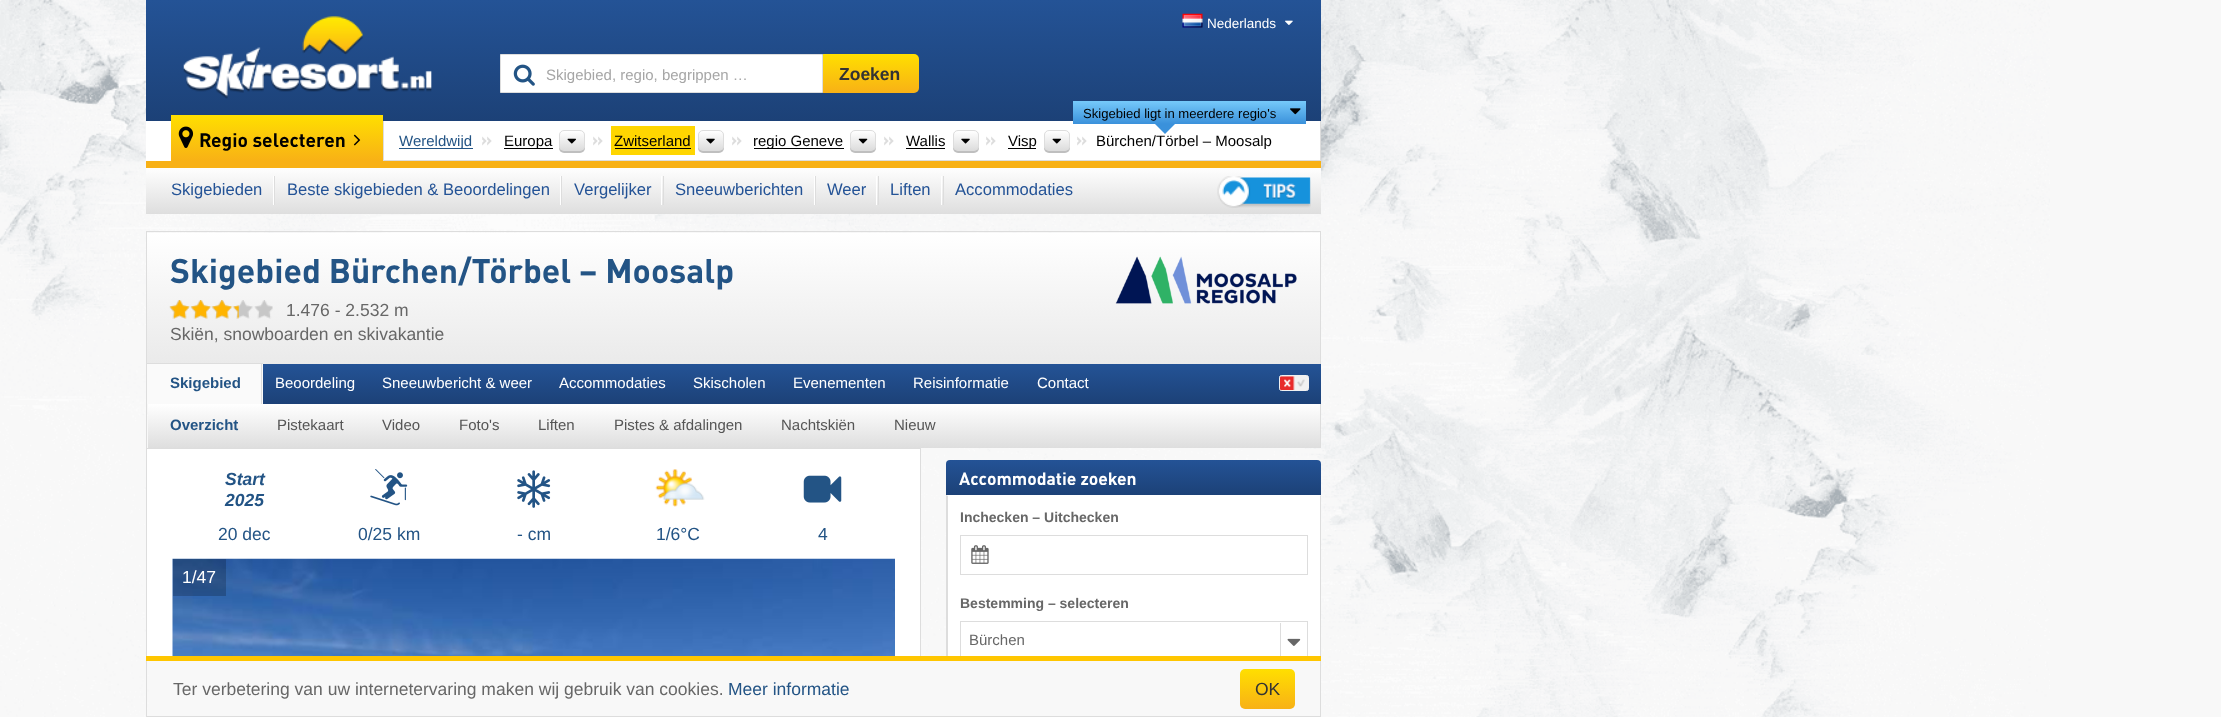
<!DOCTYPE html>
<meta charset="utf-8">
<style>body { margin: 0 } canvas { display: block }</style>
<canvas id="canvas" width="2221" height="717"></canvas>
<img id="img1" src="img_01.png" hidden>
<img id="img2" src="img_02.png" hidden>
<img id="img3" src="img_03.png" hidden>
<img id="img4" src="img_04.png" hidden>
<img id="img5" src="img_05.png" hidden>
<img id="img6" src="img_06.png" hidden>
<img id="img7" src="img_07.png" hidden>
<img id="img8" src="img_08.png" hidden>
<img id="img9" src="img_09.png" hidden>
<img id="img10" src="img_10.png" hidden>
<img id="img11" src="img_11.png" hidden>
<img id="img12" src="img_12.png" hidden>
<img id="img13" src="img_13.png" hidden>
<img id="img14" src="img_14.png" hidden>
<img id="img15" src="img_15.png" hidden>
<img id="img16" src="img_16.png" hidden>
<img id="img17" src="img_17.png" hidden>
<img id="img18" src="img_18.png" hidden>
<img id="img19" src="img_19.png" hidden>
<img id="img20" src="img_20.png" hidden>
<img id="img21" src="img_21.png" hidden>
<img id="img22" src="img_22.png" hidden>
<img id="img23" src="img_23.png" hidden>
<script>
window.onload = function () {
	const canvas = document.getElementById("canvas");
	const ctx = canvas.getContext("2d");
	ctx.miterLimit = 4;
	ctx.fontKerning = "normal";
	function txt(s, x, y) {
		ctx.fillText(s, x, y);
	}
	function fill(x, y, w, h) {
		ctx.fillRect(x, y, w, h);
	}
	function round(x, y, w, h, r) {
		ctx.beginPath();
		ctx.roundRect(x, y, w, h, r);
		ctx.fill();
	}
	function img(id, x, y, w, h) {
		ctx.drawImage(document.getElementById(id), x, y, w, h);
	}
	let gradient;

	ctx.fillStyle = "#F8F8F8";
	fill(0, 0, 2221, 717);
	img("img1", 0, 0, 2050, 717);
	gradient = ctx.createLinearGradient(734, 0, 734, 121);
	gradient.addColorStop(0, "#245396");
	gradient.addColorStop(1, "#1C4177");
	ctx.fillStyle = gradient;
	fill(146, 0, 1175, 121);
	img("img2", 183, 16, 249, 83);
	img("img3", 1182, 13, 21, 15);
	img("img4", 1285, 20, 8, 5);
	ctx.fillStyle = "#FFFFFF";
	ctx.beginPath();
	ctx.rect(500.5, 54.5, 322, 38);
	ctx.fill();
	ctx.strokeStyle = "#DDDDDD";
	ctx.stroke();
	img("img5", 513, 64, 22, 22);
	gradient = ctx.createLinearGradient(871, 54, 871, 93);
	gradient.addColorStop(0, "#FFDF00");
	gradient.addColorStop(1, "#F8B116");
	ctx.fillStyle = gradient;
	ctx.beginPath();
	ctx.roundRect(823, 54, 96, 39, [0, 5, 5, 0]);
	ctx.fill();
	ctx.fillStyle = "#FFFFFF";
	fill(146, 121, 1174, 40);
	ctx.fillStyle = "#F8B116";
	fill(146, 161, 1175, 7);
	gradient = ctx.createLinearGradient(277, 115, 277, 161);
	gradient.addColorStop(0, "#FFDF00");
	gradient.addColorStop(1, "#F8B116");
	ctx.fillStyle = gradient;
	fill(171, 115, 212, 46);
	img("img6", 178, 126, 16, 22);
	img("img7", 353, 134, 8, 12);
	ctx.fillStyle = "#DDDDDD";
	fill(1320, 121, 1, 40);
	fill(383, 160, 938, 1);
	fill(383, 121, 1, 40);
	ctx.fillStyle = "#235485";
	fill(399, 148, 74, 1);
	ctx.fillStyle = "#000000";
	fill(504, 148, 49, 1);
	ctx.fillStyle = "rgba(0, 0, 0, 0.25)";
	ctx.filter = "blur(0.5px)";
	ctx.beginPath();
	ctx.roundRect(559, 131, 26, 22, 5);
	ctx.fill();
	ctx.filter = "none";
	ctx.save();
	ctx.beginPath();
	ctx.roundRect(559, 130, 26, 21, 5);
	ctx.clip();
	gradient = ctx.createLinearGradient(572, 131, 572, 150);
	gradient.addColorStop(0, "#FFFFFF");
	gradient.addColorStop(1, "#DDDDDD");
	ctx.fillStyle = gradient;
	fill(559, 131, 26, 19);
	ctx.restore();
	ctx.beginPath();
	ctx.roundRect(559.5, 130.5, 25, 20, 4.5);
	ctx.stroke();
	img("img8", 567, 138, 9, 6);
	ctx.fillStyle = "#FFD600";
	fill(611, 126, 84, 29);
	ctx.fillStyle = "#000000";
	fill(615, 148, 76, 1);
	ctx.fillStyle = "rgba(0, 0, 0, 0.25)";
	ctx.filter = "blur(0.5px)";
	ctx.beginPath();
	ctx.roundRect(698, 131, 26, 22, 5);
	ctx.fill();
	ctx.filter = "none";
	ctx.save();
	ctx.beginPath();
	ctx.roundRect(698, 130, 26, 21, 5);
	ctx.clip();
	gradient = ctx.createLinearGradient(711, 131, 711, 150);
	gradient.addColorStop(0, "#FFFFFF");
	gradient.addColorStop(1, "#DDDDDD");
	ctx.fillStyle = gradient;
	fill(698, 131, 26, 19);
	ctx.restore();
	ctx.beginPath();
	ctx.roundRect(698.5, 130.5, 25, 20, 4.5);
	ctx.stroke();
	img("img9", 706, 138, 9, 6);
	ctx.fillStyle = "#000000";
	fill(754, 148, 90, 1);
	ctx.fillStyle = "rgba(0, 0, 0, 0.25)";
	ctx.filter = "blur(0.5px)";
	ctx.beginPath();
	ctx.roundRect(850, 131, 26, 22, 5);
	ctx.fill();
	ctx.filter = "none";
	ctx.save();
	ctx.beginPath();
	ctx.roundRect(850, 130, 26, 21, 5);
	ctx.clip();
	gradient = ctx.createLinearGradient(863, 131, 863, 150);
	gradient.addColorStop(0, "#FFFFFF");
	gradient.addColorStop(1, "#DDDDDD");
	ctx.fillStyle = gradient;
	fill(850, 131, 26, 19);
	ctx.restore();
	ctx.beginPath();
	ctx.roundRect(850.5, 130.5, 25, 20, 4.5);
	ctx.stroke();
	img("img10", 858, 138, 10, 6);
	ctx.fillStyle = "#000000";
	fill(906, 148, 39, 1);
	ctx.fillStyle = "rgba(0, 0, 0, 0.25)";
	ctx.filter = "blur(0.5px)";
	ctx.beginPath();
	ctx.roundRect(953, 131, 26, 22, 5);
	ctx.fill();
	ctx.filter = "none";
	ctx.save();
	ctx.beginPath();
	ctx.roundRect(953, 130, 26, 21, 5);
	ctx.clip();
	gradient = ctx.createLinearGradient(966, 131, 966, 150);
	gradient.addColorStop(0, "#FFFFFF");
	gradient.addColorStop(1, "#DDDDDD");
	ctx.fillStyle = gradient;
	fill(953, 131, 26, 19);
	ctx.restore();
	ctx.beginPath();
	ctx.roundRect(953.5, 130.5, 25, 20, 4.5);
	ctx.stroke();
	img("img9", 961, 138, 9, 6);
	ctx.fillStyle = "#000000";
	fill(1008, 148, 28, 1);
	ctx.fillStyle = "rgba(0, 0, 0, 0.25)";
	ctx.filter = "blur(0.5px)";
	ctx.beginPath();
	ctx.roundRect(1044, 131, 26, 22, 5);
	ctx.fill();
	ctx.filter = "none";
	ctx.save();
	ctx.beginPath();
	ctx.roundRect(1044, 130, 26, 21, 5);
	ctx.clip();
	gradient = ctx.createLinearGradient(1057, 131, 1057, 150);
	gradient.addColorStop(0, "#FFFFFF");
	gradient.addColorStop(1, "#DDDDDD");
	ctx.fillStyle = gradient;
	fill(1044, 131, 26, 19);
	ctx.restore();
	ctx.beginPath();
	ctx.roundRect(1044.5, 130.5, 25, 20, 4.5);
	ctx.stroke();
	img("img8", 1052, 138, 9, 6);
	gradient = ctx.createLinearGradient(1189, 101, 1189, 124);
	gradient.addColorStop(0, "#76C9FA");
	gradient.addColorStop(1, "#3A91DB");
	ctx.fillStyle = gradient;
	fill(1073, 101, 233, 23);
	img("img11", 1290, 108, 11, 7);
	ctx.fillStyle = "#3A91DB";
	ctx.beginPath();
	ctx.moveTo(1155, 124);
	ctx.lineTo(1175, 124);
	ctx.lineTo(1165, 134);
	ctx.closePath();
	ctx.fill();
	gradient = ctx.createLinearGradient(734, 167, 734, 214);
	gradient.addColorStop(0, "#FFFFFF");
	gradient.addColorStop(1, "#DEDEDE");
	ctx.fillStyle = gradient;
	fill(146, 168, 1175, 46);
	ctx.fillStyle = "#DDDDDD";
	fill(274, 176, 1, 29);
	ctx.fillStyle = "#FFFFFF";
	fill(273, 176, 1, 29);
	ctx.fillStyle = "#DDDDDD";
	fill(561, 176, 1, 29);
	ctx.fillStyle = "#FFFFFF";
	fill(560, 176, 1, 29);
	ctx.fillStyle = "#DDDDDD";
	fill(663, 176, 1, 29);
	ctx.fillStyle = "#FFFFFF";
	fill(661, 176, 1, 29);
	ctx.fillStyle = "#DDDDDD";
	fill(815, 176, 1, 29);
	ctx.fillStyle = "#FFFFFF";
	fill(814, 176, 1, 29);
	ctx.fillStyle = "#DDDDDD";
	fill(878, 176, 1, 29);
	ctx.fillStyle = "#FFFFFF";
	fill(876, 176, 1, 29);
	ctx.fillStyle = "#DDDDDD";
	fill(943, 176, 1, 29);
	ctx.fillStyle = "#FFFFFF";
	fill(941, 176, 1, 29);
	img("img12", 1217, 176, 94, 32);
	gradient = ctx.createLinearGradient(734, 232, 734, 364);
	gradient.addColorStop(0, "#FFFFFF");
	gradient.addColorStop(1, "#EAEAEA");
	ctx.fillStyle = gradient;
	fill(147, 233, 1173, 131);
	ctx.fillStyle = "#DDDDDD";
	fill(146, 231, 1175, 1);
	fill(1320, 231, 1, 133);
	fill(146, 231, 1, 133);
	img("img13", 169, 300, 104, 19);
	img("img14", 169, 300, 70, 19);
	img("img15", 1115, 256, 182, 48);
	fill(1320, 404, 1, 44);
	fill(146, 404, 1, 44);
	gradient = ctx.createLinearGradient(734, 364, 734, 404);
	gradient.addColorStop(0, "#245396");
	gradient.addColorStop(1, "#1C4177");
	ctx.fillStyle = gradient;
	fill(263, 364, 1058, 40);
	ctx.fillStyle = "#FAFAFA";
	fill(147, 364, 116, 40);
	ctx.fillStyle = "#DDDDDD";
	fill(146, 363, 117, 1);
	fill(261, 363, 1, 41);
	fill(146, 363, 1, 41);
	ctx.fillStyle = "#F1F1F1";
	ctx.beginPath();
	ctx.roundRect(1279.5, 375.5, 29, 15, 2);
	ctx.fill();
	ctx.strokeStyle = "#F1F1F1";
	ctx.stroke();
	img("img16", 1280, 376, 25, 14);
	gradient = ctx.createLinearGradient(734, 404, 734, 448);
	gradient.addColorStop(0, "#FFFFFF");
	gradient.addColorStop(1, "#DEDEDE");
	ctx.fillStyle = gradient;
	fill(148, 404, 1172, 44);
	ctx.fillStyle = "#FFFFFF";
	fill(147, 449, 773, 207);
	ctx.strokeStyle = "#DDDDDD";
	ctx.strokeRect(146.5, 448.5, 774, 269);
	img("img17", 370, 469, 38, 37);
	img("img18", 517, 470, 34, 38);
	img("img19", 655, 469, 50, 38);
	img("img20", 803, 475, 39, 28);
	img("img21", 172, 558, 723, 98);
	ctx.fillStyle = "rgba(0, 0, 0, 0.2)";
	fill(173, 559, 53, 37);
	gradient = ctx.createLinearGradient(1134, 460, 1134, 495);
	gradient.addColorStop(0, "#245396");
	gradient.addColorStop(1, "#1C4177");
	ctx.fillStyle = gradient;
	ctx.beginPath();
	ctx.roundRect(946, 460, 375, 35, [4, 4, 0, 0]);
	ctx.fill();
	ctx.fillStyle = "#FFFFFF";
	fill(946, 495, 375, 161);
	ctx.fillStyle = "#DDDDDD";
	ctx.beginPath();
	ctx.moveTo(1321, 495);
	ctx.lineTo(1321, 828);
	ctx.lineTo(1320, 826);
	ctx.lineTo(1320, 496);
	ctx.closePath();
	ctx.fill();
	ctx.beginPath();
	ctx.moveTo(946, 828);
	ctx.lineTo(946, 495);
	ctx.lineTo(948, 496);
	ctx.lineTo(948, 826);
	ctx.closePath();
	ctx.fill();
	ctx.strokeRect(960.5, 535.5, 347, 39);
	img("img22", 971, 545, 18, 19);
	ctx.strokeRect(960.5, 621.5, 347, 39);
	fill(1280, 623, 1, 37);
	img("img23", 1287, 638, 14, 8);
	ctx.fillStyle = "#FFC600";
	fill(146, 656, 1175, 5);
	ctx.fillStyle = "#F8F8F8";
	fill(149, 661, 1171, 55);
	ctx.fillStyle = "#DDDDDD";
	fill(146, 716, 1175, 1);
	gradient = ctx.createLinearGradient(1268, 669, 1268, 709);
	gradient.addColorStop(0, "#FFDF00");
	gradient.addColorStop(1, "#F8B116");
	ctx.fillStyle = gradient;
	round(1240, 669, 55, 40, 5);
	ctx.font = "13.5px Liberation Sans";
	ctx.fillStyle = "#FFFFFF";
	txt("Nederlands", 1207, 28);
	ctx.font = "15px Liberation Sans";
	ctx.fillStyle = "#A6A6A6";
	txt("Skigebied, regio, begrippen …", 546, 80);
	ctx.font = "bold 17.5px Liberation Sans";
	ctx.fillStyle = "#333333";
	txt("Zoeken", 839, 80);
	ctx.font = "bold 19.25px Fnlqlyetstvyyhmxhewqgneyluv";
	ctx.fillStyle = "#000000";
	txt("Regio selecteren", 199, 147);
	ctx.font = "15px Liberation Sans";
	ctx.fillStyle = "#235485";
	txt("Wereldwijd", 399, 146);
	ctx.font = "bold 18px Fnlqlyetstvyyhmxhewqgneyluv";
	ctx.fillStyle = "#DDDDDD";
	txt("»", 481, 146);
	ctx.font = "15px Liberation Sans";
	ctx.fillStyle = "#000000";
	txt("Europa", 504, 146);
	ctx.font = "bold 18px Fnlqlyetstvyyhmxhewqgneyluv";
	ctx.fillStyle = "#DDDDDD";
	txt("»", 592, 146);
	ctx.font = "15px Liberation Sans";
	ctx.fillStyle = "#000000";
	txt("Zwitserland", 614, 146);
	ctx.font = "bold 18px Fnlqlyetstvyyhmxhewqgneyluv";
	ctx.fillStyle = "#DDDDDD";
	txt("»", 731, 146);
	ctx.font = "15px Liberation Sans";
	ctx.fillStyle = "#000000";
	txt("regio Geneve", 753, 146);
	ctx.font = "bold 18px Fnlqlyetstvyyhmxhewqgneyluv";
	ctx.fillStyle = "#DDDDDD";
	txt("»", 883, 146);
	ctx.font = "15px Liberation Sans";
	ctx.fillStyle = "#000000";
	txt("Wallis", 906, 146);
	ctx.font = "bold 18px Fnlqlyetstvyyhmxhewqgneyluv";
	ctx.fillStyle = "#DDDDDD";
	txt("»", 985, 146);
	ctx.font = "15px Liberation Sans";
	ctx.fillStyle = "#000000";
	txt("Visp", 1008, 146);
	ctx.font = "13.1px Liberation Sans";
	txt("Skigebied ligt in meerdere regio's", 1083, 118);
	ctx.font = "bold 18px Fnlqlyetstvyyhmxhewqgneyluv";
	ctx.fillStyle = "#DDDDDD";
	txt("»", 1076, 146);
	ctx.font = "15px Liberation Sans";
	ctx.fillStyle = "#000000";
	txt("Bürchen/Törbel – Moosalp", 1096, 146);
	ctx.font = "16.6px Liberation Sans";
	ctx.fillStyle = "#245396";
	txt("Skigebieden", 171, 195);
	txt("Beste skigebieden & Beoordelingen", 287, 195);
	txt("Vergelijker", 574, 195);
	txt("Sneeuwberichten", 675, 195);
	txt("Weer", 827, 195);
	txt("Liften", 890, 195);
	txt("Accommodaties", 955, 195);
	ctx.font = "bold 33.75px Fnlqlyetstvyyhmxhewqgneyluv";
	ctx.fillStyle = "#235485";
	txt("Skigebied Bürchen/Törbel – Moosalp", 170, 283);
	ctx.font = "17.5px Liberation Sans";
	ctx.fillStyle = "#676767";
	txt("1.476 - 2.532 m", 286, 316);
	txt("Skiën, snowboarden en skivakantie", 170, 340);
	ctx.font = "bold 15px Liberation Sans";
	ctx.fillStyle = "#235485";
	txt("Skigebied", 170, 388);
	txt("Overzicht", 170, 430);
	ctx.font = "15px Liberation Sans";
	ctx.fillStyle = "#555555";
	txt("Pistekaart", 277, 430);
	txt("Video", 382, 430);
	txt("Foto's", 459, 430);
	txt("Liften", 538, 430);
	txt("Pistes & afdalingen", 614, 430);
	txt("Nachtskiën", 781, 430);
	txt("Nieuw", 894, 430);
	ctx.fillStyle = "#FFFFFF";
	txt("Beoordeling", 275, 388);
	txt("Sneeuwbericht & weer", 382, 388);
	txt("Accommodaties", 559, 388);
	txt("Skischolen", 693, 388);
	txt("Evenementen", 793, 388);
	txt("Reisinformatie", 913, 388);
	txt("Contact", 1037, 388);
	ctx.font = "italic bold 17.5px Liberation Sans";
	ctx.fillStyle = "#235485";
	txt("Start", 225, 485);
	txt("2025", 225, 506);
	ctx.font = "17.5px Liberation Sans";
	txt("20 dec", 218, 540);
	txt("0/25 km", 358, 540);
	txt("- cm", 517, 540);
	txt("1/6°C", 656, 540);
	txt("4", 818, 540);
	ctx.fillStyle = "#FFFFFF";
	txt("1/47", 182, 583);
	ctx.font = "bold 17.5px Fnlqlyetstvyyhmxhewqgneyluv";
	txt("Accommodatie zoeken", 959, 485);
	ctx.font = "bold 14px Liberation Sans";
	ctx.fillStyle = "#676767";
	txt("Inchecken – Uitchecken", 960, 522);
	txt("Bestemming – selecteren", 960, 608);
	ctx.font = "15px Liberation Sans";
	txt("Bürchen", 969, 645);
	ctx.font = "17.5px Liberation Sans";
	txt("Ter verbetering van uw internetervaring maken wij gebruik van cookies.", 173, 695);
	ctx.fillStyle = "#235485";
	txt("Meer informatie", 728, 695);
	ctx.fillStyle = "#333333";
	txt("OK", 1255, 695);
};
</script>
